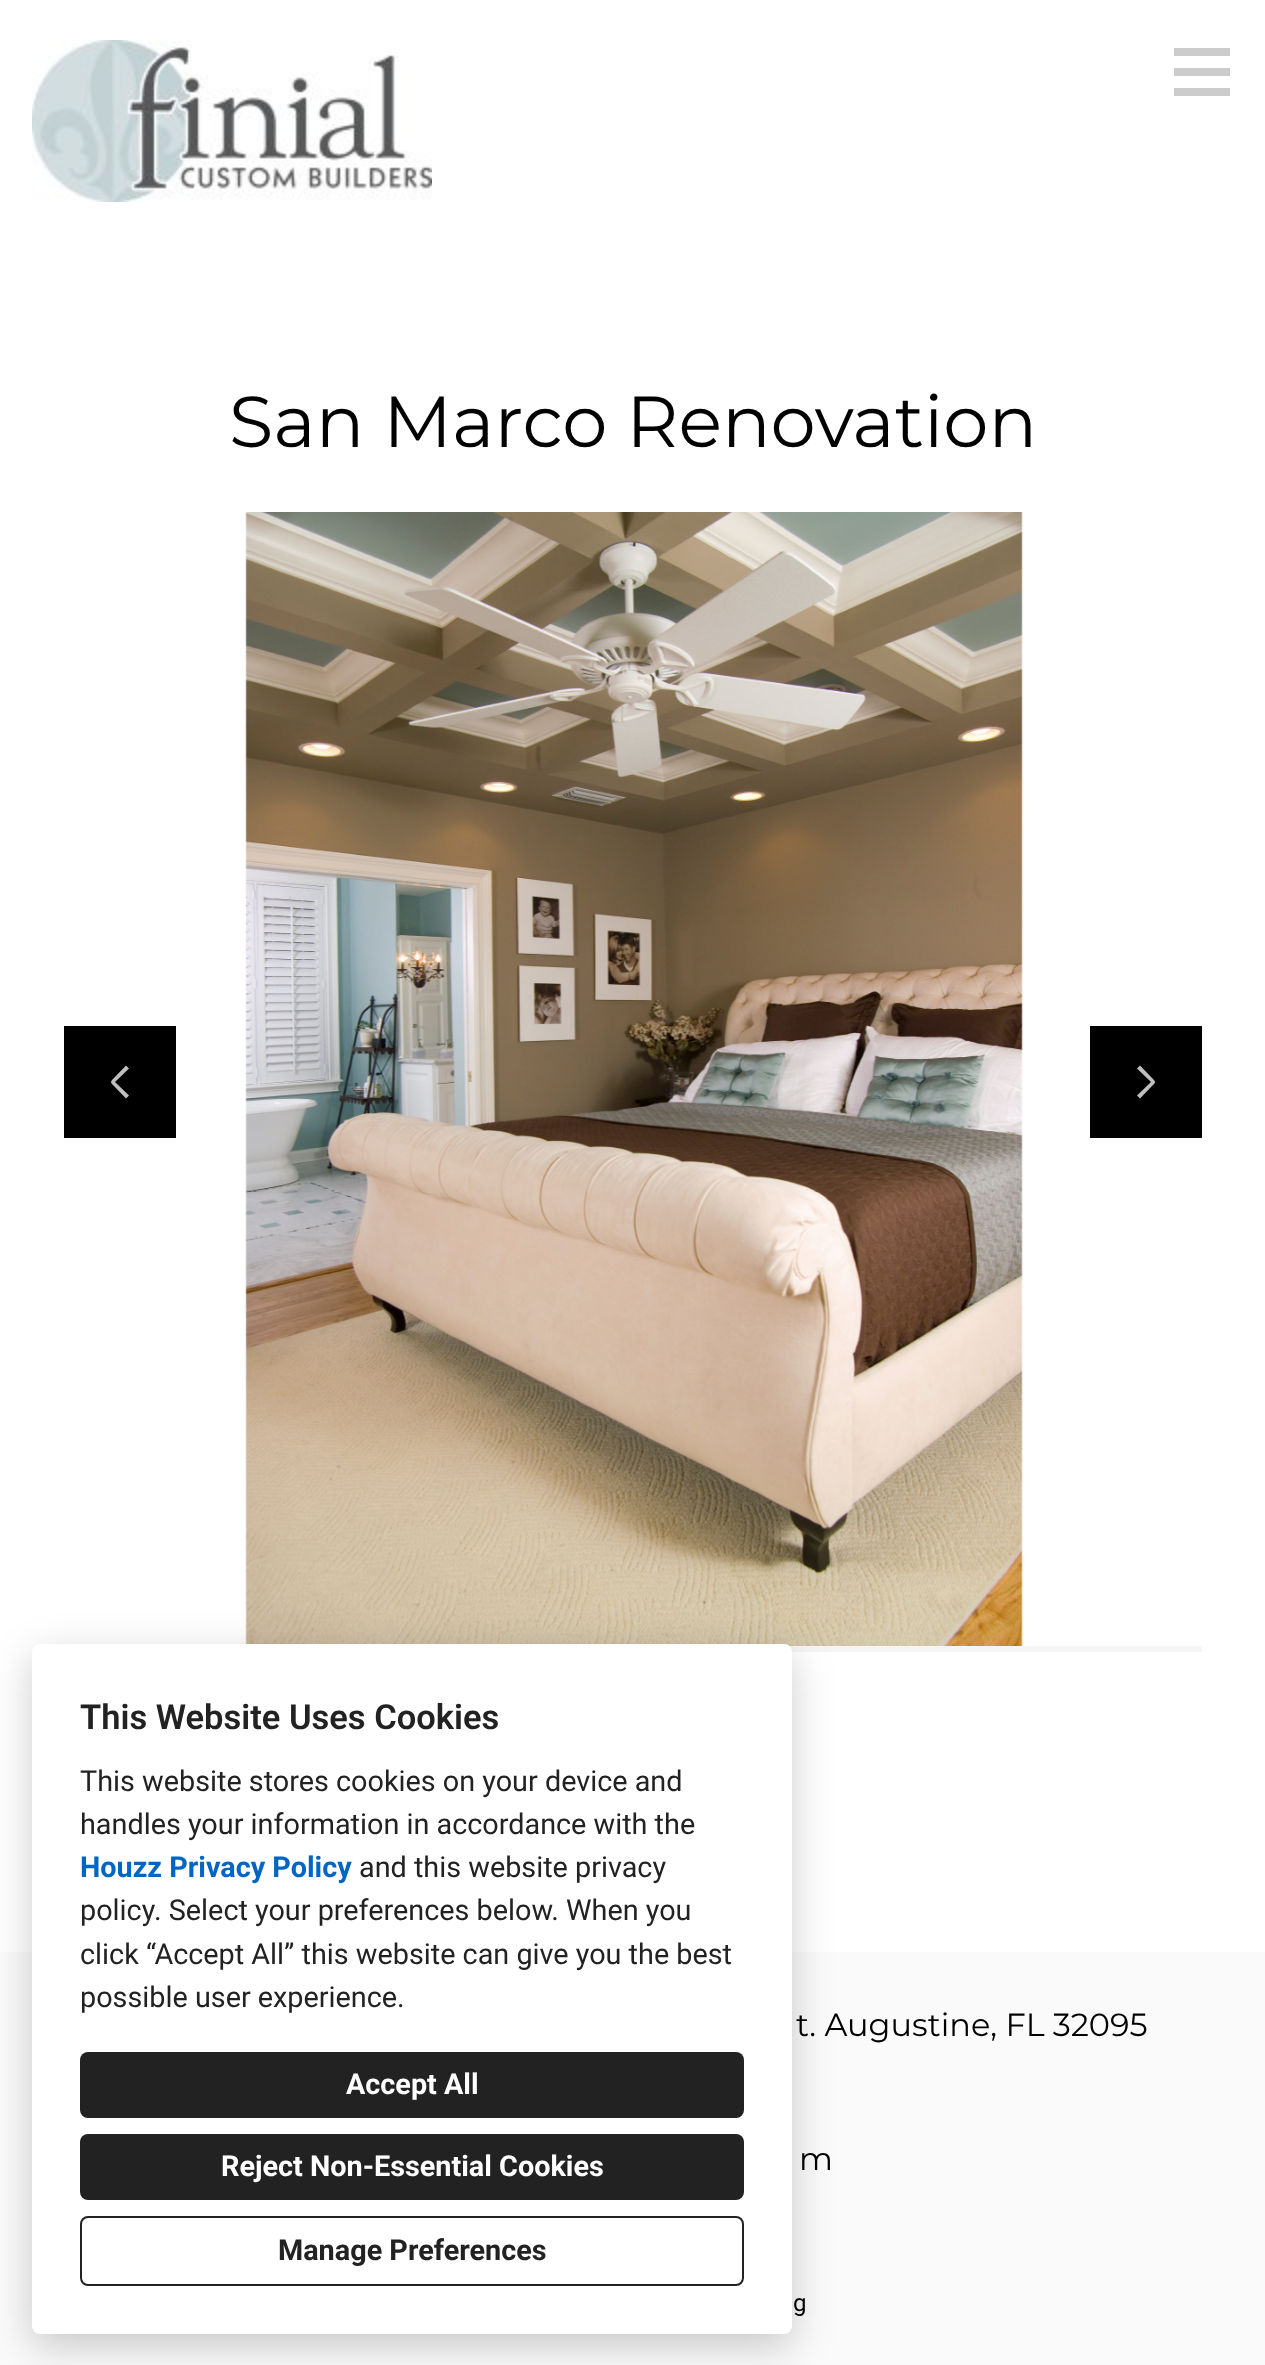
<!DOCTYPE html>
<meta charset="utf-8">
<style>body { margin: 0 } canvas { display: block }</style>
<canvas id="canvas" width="1265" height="2365"></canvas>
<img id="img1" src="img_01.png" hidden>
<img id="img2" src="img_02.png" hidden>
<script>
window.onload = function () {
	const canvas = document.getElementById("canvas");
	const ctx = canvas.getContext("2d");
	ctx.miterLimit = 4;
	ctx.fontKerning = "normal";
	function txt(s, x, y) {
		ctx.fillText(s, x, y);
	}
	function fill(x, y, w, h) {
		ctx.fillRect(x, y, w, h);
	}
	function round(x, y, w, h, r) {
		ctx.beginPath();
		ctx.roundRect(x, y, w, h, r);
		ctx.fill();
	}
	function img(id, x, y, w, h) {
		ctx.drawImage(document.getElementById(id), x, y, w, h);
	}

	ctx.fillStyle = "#FFFFFF";
	fill(0, 0, 1265, 2365);
	img("img1", 32, 40, 400, 162);
	ctx.fillStyle = "#CCCCCC";
	ctx.beginPath();
	ctx.moveTo(1174, 48);
	ctx.lineTo(1174, 56);
	ctx.lineTo(1230, 56);
	ctx.lineTo(1230, 48);
	ctx.closePath();
	ctx.moveTo(1230, 68);
	ctx.lineTo(1174, 68);
	ctx.lineTo(1174, 76);
	ctx.lineTo(1230, 76);
	ctx.closePath();
	ctx.moveTo(1174, 96);
	ctx.lineTo(1230, 96);
	ctx.lineTo(1230, 88);
	ctx.lineTo(1174, 88);
	ctx.closePath();
	ctx.fill();
	ctx.fillStyle = "#000000";
	fill(64, 1026, 112, 112);
	ctx.fillStyle = "#BFBFBF";
	ctx.beginPath();
	ctx.moveTo(126, 1098.5);
	ctx.lineTo(114, 1086);
	ctx.bezierCurveTo(110, 1082, 110, 1082, 114, 1078);
	ctx.lineTo(126, 1065.5);
	ctx.lineTo(129, 1068.5);
	ctx.lineTo(115, 1082);
	ctx.lineTo(129, 1095.5);
	ctx.closePath();
	ctx.fill();
	img("img2", 245, 512, 778, 1134);
	ctx.fillStyle = "#000000";
	fill(1090, 1026, 112, 112);
	ctx.fillStyle = "#BFBFBF";
	ctx.beginPath();
	ctx.moveTo(1140, 1098.5);
	ctx.lineTo(1152, 1086);
	ctx.bezierCurveTo(1156, 1082, 1156, 1082, 1152, 1078);
	ctx.lineTo(1140, 1065.5);
	ctx.lineTo(1137, 1068.5);
	ctx.lineTo(1151, 1082);
	ctx.lineTo(1137, 1095.5);
	ctx.closePath();
	ctx.fill();
	ctx.fillStyle = "#F5F5F5";
	fill(789, 1646, 413, 6);
	ctx.fillStyle = "#FAFAFA";
	fill(0, 1952, 1265, 413);
	ctx.fillStyle = "rgba(0, 0, 0, 0.2)";
	ctx.filter = "blur(20px)";
	ctx.beginPath();
	ctx.roundRect(32, 1656, 760, 690, 8);
	ctx.fill();
	ctx.filter = "none";
	ctx.fillStyle = "#FFFFFF";
	round(32, 1644, 760, 690, 8);
	ctx.fillStyle = "#222222";
	round(80, 2052, 664, 66, 8);
	round(80, 2134, 664, 66, 8);
	ctx.beginPath();
	ctx.roundRect(81, 2217, 662, 68, 7);
	ctx.strokeStyle = "#222222";
	ctx.lineWidth = 2;
	ctx.stroke();
	ctx.font = "72px Montserrat";
	ctx.fillStyle = "#000000";
	txt("San Marco Renovation", 229, 447);
	ctx.font = "32px Montserrat";
	txt("t. Augustine, FL 32095", 796, 2036);
	txt("m", 799, 2170);
	ctx.font = "24px Roboto";
	txt("g", 793, 2311);
	ctx.font = "600 34.5px Roboto";
	ctx.fillStyle = "#222222";
	txt("This Website Uses Cookies", 80, 1729);
	ctx.font = "28.8px Roboto";
	txt("This website stores cookies on your device and", 80, 1791);
	txt("handles your information in accordance with the", 80, 1834);
	ctx.font = "bold 28.8px Roboto";
	ctx.fillStyle = "#0066C3";
	txt("Houzz Privacy Policy", 80, 1877);
	ctx.font = "28.8px Roboto";
	ctx.fillStyle = "#222222";
	txt("and this website privacy", 359, 1877);
	txt("policy", 80, 1920);
	txt(". Select your preferences below. When you", 154, 1920);
	txt("click “Accept All” this website can give you the best", 80, 1964);
	txt("possible user experience.", 80, 2007);
	ctx.font = "bold 28.8px Roboto";
	ctx.fillStyle = "#FFFFFF";
	txt("Accept All", 346, 2094);
	txt("Reject Non-Essential Cookies", 221, 2176);
	ctx.fillStyle = "#222222";
	txt("Manage Preferences", 278, 2260);
};
</script>
